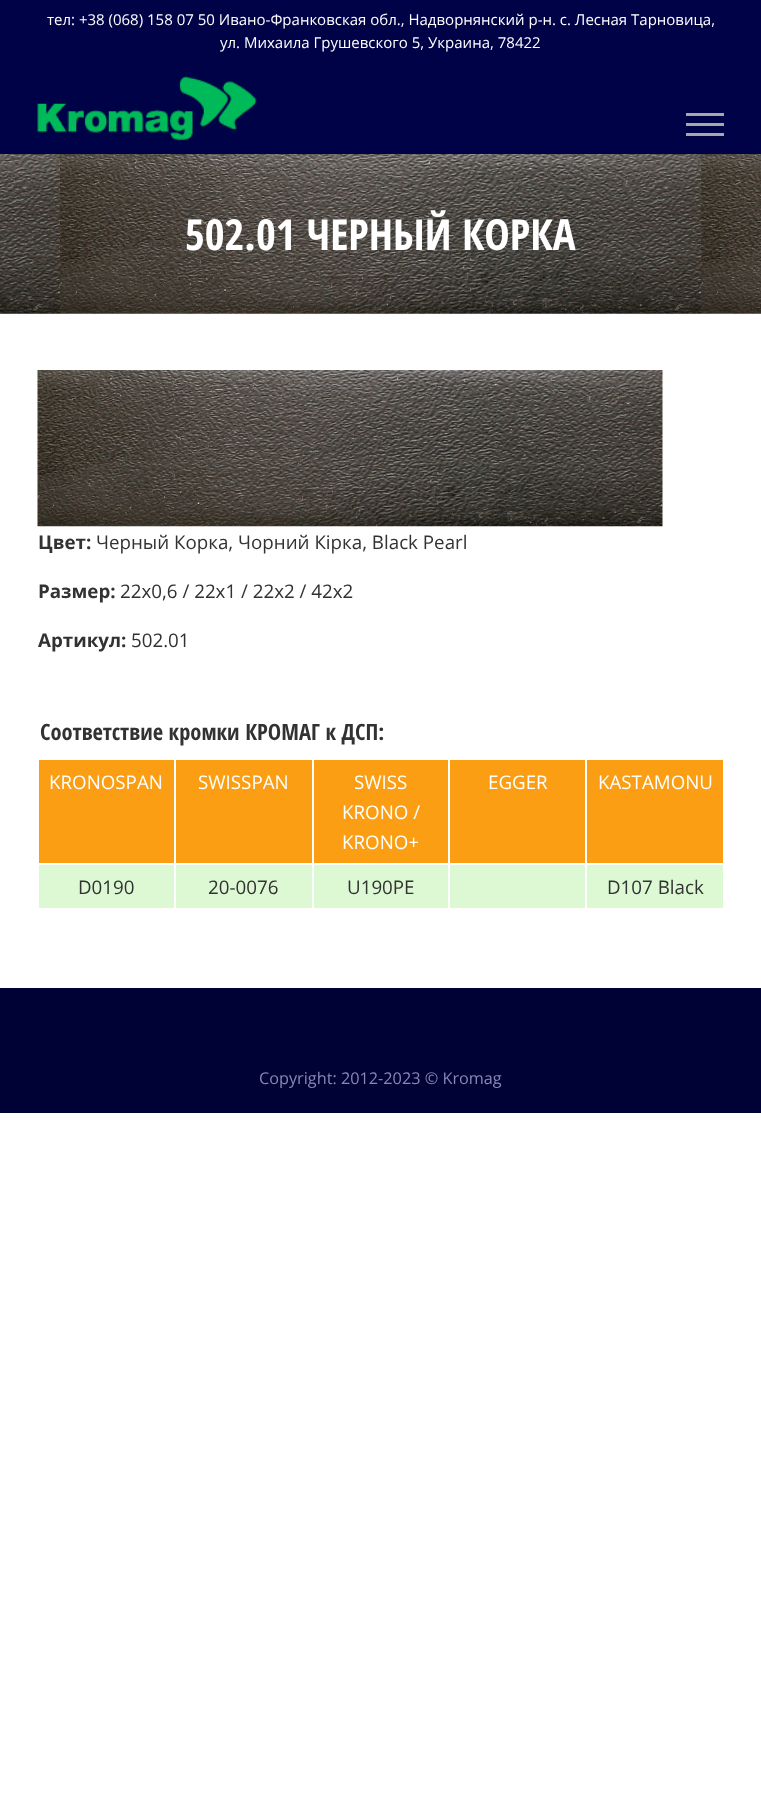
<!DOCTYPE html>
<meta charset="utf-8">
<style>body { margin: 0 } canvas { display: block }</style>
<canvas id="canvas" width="761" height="1812"></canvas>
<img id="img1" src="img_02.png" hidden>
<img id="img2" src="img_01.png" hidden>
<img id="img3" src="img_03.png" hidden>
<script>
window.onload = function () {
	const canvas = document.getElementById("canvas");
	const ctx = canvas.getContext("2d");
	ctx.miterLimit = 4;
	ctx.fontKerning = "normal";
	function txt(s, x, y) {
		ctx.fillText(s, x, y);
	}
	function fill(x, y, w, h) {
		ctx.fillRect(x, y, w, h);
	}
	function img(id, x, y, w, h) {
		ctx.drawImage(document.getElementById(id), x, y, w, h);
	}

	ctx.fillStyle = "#FFFFFF";
	fill(0, 0, 761, 1812);
	ctx.fillStyle = "#000248";
	fill(0, 0, 761, 64);
	img("img1", 0, 154, 761, 160);
	ctx.fillStyle = "rgba(0, 0, 0, 0.12)";
	ctx.filter = "blur(2px)";
	ctx.beginPath();
	ctx.rect(0, 65, 761, 90);
	ctx.fill();
	ctx.filter = "none";
	ctx.fillStyle = "#000248";
	fill(0, 64, 761, 90);
	img("img2", 37, 76, 220, 65);
	ctx.fillStyle = "#A7A7A7";
	fill(686, 113, 38, 3);
	fill(686, 123, 38, 3);
	fill(686, 133, 38, 3);
	img("img3", 37, 370, 626, 157);
	ctx.fillStyle = "#FB9E13";
	fill(39, 760, 135, 103);
	fill(176, 760, 136, 103);
	fill(314, 760, 134, 103);
	fill(450, 760, 135, 103);
	fill(587, 760, 136, 103);
	ctx.fillStyle = "#DDF9D4";
	fill(39, 865, 135, 43);
	fill(176, 865, 136, 43);
	fill(314, 865, 134, 43);
	fill(450, 865, 135, 43);
	fill(587, 865, 136, 43);
	ctx.fillStyle = "#000135";
	fill(0, 988, 761, 125);
	ctx.font = "15px Open Sans";
	ctx.fillStyle = "#FFFFFF";
	txt("тел: +38 (068) 158 07 50 Ивано-Франковская обл., Надворнянский р-н. с. Лесная Тарновица,", 47, 25);
	txt("ул. Михаила Грушевского 5, Украина, 78422", 220, 48);
	ctx.font = "bold 42.75px Open Sans Condensed";
	txt("502.01 ЧЕРНЫЙ КОРКА", 185, 250);
	ctx.font = "bold 18.75px Open Sans";
	ctx.fillStyle = "#323232";
	txt("Цвет:", 38, 549);
	ctx.font = "18.75px Open Sans";
	txt("Черный Корка, Чорний Кірка, Black Pearl", 96, 549);
	ctx.font = "bold 18.75px Open Sans";
	txt("Размер:", 38, 598);
	ctx.font = "18.75px Open Sans";
	txt("22х0,6 / 22х1 / 22х2 / 42х2", 120, 598);
	ctx.font = "bold 18.75px Open Sans";
	txt("Артикул:", 38, 647);
	ctx.font = "18.75px Open Sans";
	txt("502.01", 131, 647);
	ctx.font = "bold 22.5px Open Sans Condensed";
	txt("Соответствие кромки КРОМАГ к ДСП:", 40, 740);
	ctx.font = "18.75px Open Sans";
	ctx.fillStyle = "#FFFFFF";
	txt("KRONOSPAN", 49, 789);
	txt("SWISSPAN", 198, 789);
	txt("SWISS", 354, 789);
	txt("KRONO /", 342, 819);
	txt("KRONO+", 342, 849);
	txt("EGGER", 488, 789);
	txt("KASTAMONU", 598, 789);
	ctx.fillStyle = "#323232";
	txt("D0190", 78, 894);
	txt("20-0076", 208, 894);
	txt("U190PE", 347, 894);
	txt("D107 Black", 607, 894);
	ctx.font = "16.25px Open Sans";
	ctx.fillStyle = "#8788B9";
	txt("Copyright: 2012-2023 © Kromag", 259, 1084);
};
</script>
